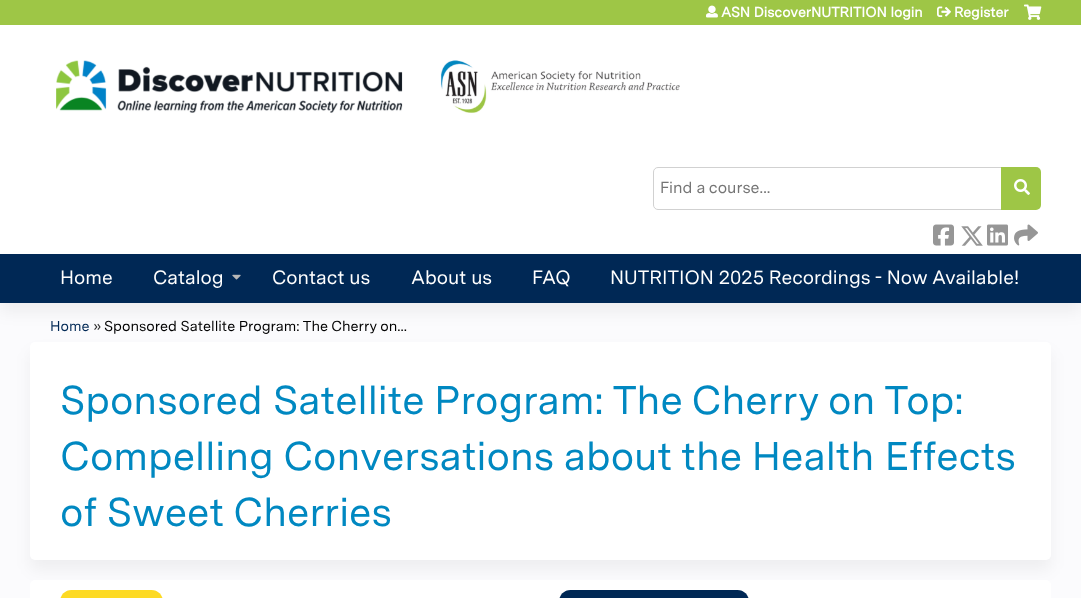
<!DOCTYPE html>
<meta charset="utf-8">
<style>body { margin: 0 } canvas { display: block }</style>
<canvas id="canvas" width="1081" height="598"></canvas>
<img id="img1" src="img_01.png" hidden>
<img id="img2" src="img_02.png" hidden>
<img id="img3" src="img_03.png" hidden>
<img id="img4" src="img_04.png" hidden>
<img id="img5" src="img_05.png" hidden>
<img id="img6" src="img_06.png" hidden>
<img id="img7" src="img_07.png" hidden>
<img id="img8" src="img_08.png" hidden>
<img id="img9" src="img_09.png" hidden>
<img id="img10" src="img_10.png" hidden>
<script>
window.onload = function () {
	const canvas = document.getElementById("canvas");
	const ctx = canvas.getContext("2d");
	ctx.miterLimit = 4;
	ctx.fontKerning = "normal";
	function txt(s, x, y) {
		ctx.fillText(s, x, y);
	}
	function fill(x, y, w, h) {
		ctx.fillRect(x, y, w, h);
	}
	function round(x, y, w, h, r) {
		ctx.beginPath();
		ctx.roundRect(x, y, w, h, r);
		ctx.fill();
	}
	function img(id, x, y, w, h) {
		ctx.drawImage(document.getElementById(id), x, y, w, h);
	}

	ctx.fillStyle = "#FBFBFD";
	fill(0, 0, 1081, 598);
	ctx.fillStyle = "#FFFFFF";
	fill(0, 25, 1081, 229);
	ctx.fillStyle = "#9EC646";
	fill(0, 0, 1081, 25);
	img("img1", 56, 60, 624, 53);
	img("img2", 706, 5, 12, 13);
	img("img3", 937, 6, 14, 11);
	img("img4", 1024, 4, 18, 16);
	ctx.beginPath();
	ctx.roundRect(653.5, 167.5, 348, 42, [4.5, 0, 0, 4.5]);
	ctx.strokeStyle = "#D1D1D1";
	ctx.stroke();
	ctx.beginPath();
	ctx.roundRect(1001, 167, 40, 43, [0, 5, 5, 0]);
	ctx.fill();
	img("img5", 1014, 179, 16, 16);
	img("img6", 933, 224, 21, 22);
	img("img7", 961, 226, 22, 20);
	img("img8", 987, 224, 21, 22);
	img("img9", 1014, 224, 24, 22);
	ctx.fillStyle = "rgba(0, 0, 0, 0.05)";
	ctx.filter = "blur(7.5px)";
	ctx.beginPath();
	ctx.rect(0, 264, 1081, 49);
	ctx.fill();
	ctx.filter = "none";
	ctx.fillStyle = "#002855";
	fill(0, 254, 1081, 49);
	img("img10", 232, 274, 9, 6);
	ctx.fillStyle = "rgba(0, 0, 0, 0.05)";
	ctx.filter = "blur(7.5px)";
	ctx.beginPath();
	ctx.roundRect(30, 352, 1021, 218, 5);
	ctx.fill();
	ctx.filter = "none";
	ctx.fillStyle = "#FFFFFF";
	round(30, 342, 1021, 218, 5);
	round(30, 580, 1021, 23, 5);
	ctx.fillStyle = "#FDDA24";
	round(60, 590, 103, 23, 15);
	ctx.fillStyle = "#002855";
	round(559, 590, 190, 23, 15);
	ctx.font = "bold 14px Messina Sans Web";
	ctx.fillStyle = "#FFFFFF";
	txt("ASN DiscoverNUTRITION login", 721, 17);
	txt("Register", 954, 17);
	ctx.font = "16px Messina Sans Web";
	ctx.fillStyle = "#757575";
	txt("Find a course...", 660, 193);
	ctx.font = "19.2px Messina Sans Web";
	ctx.fillStyle = "#FFFFFF";
	txt("Home", 60, 284);
	txt("Catalog", 153, 284);
	txt("Contact us", 272, 284);
	txt("About us", 411, 284);
	txt("FAQ", 532, 284);
	txt("NUTRITION 2025 Recordings - Now Available!", 610, 284);
	ctx.font = "14.4px Messina Sans Web";
	ctx.fillStyle = "#002855";
	txt("Home", 50, 331);
	ctx.fillStyle = "#2F2F2F";
	txt("»", 93, 331);
	ctx.fillStyle = "#000000";
	txt("Sponsored Satellite Program: The Cherry on...", 104, 331);
	ctx.font = "40px Messina Sans Web";
	ctx.fillStyle = "#0088C1";
	txt("Sponsored Satellite Program: The Cherry on Top:", 60, 414);
	txt("Compelling Conversations about the Health Effects", 60, 470);
	txt("of Sweet Cherries", 60, 526);
};
</script>
